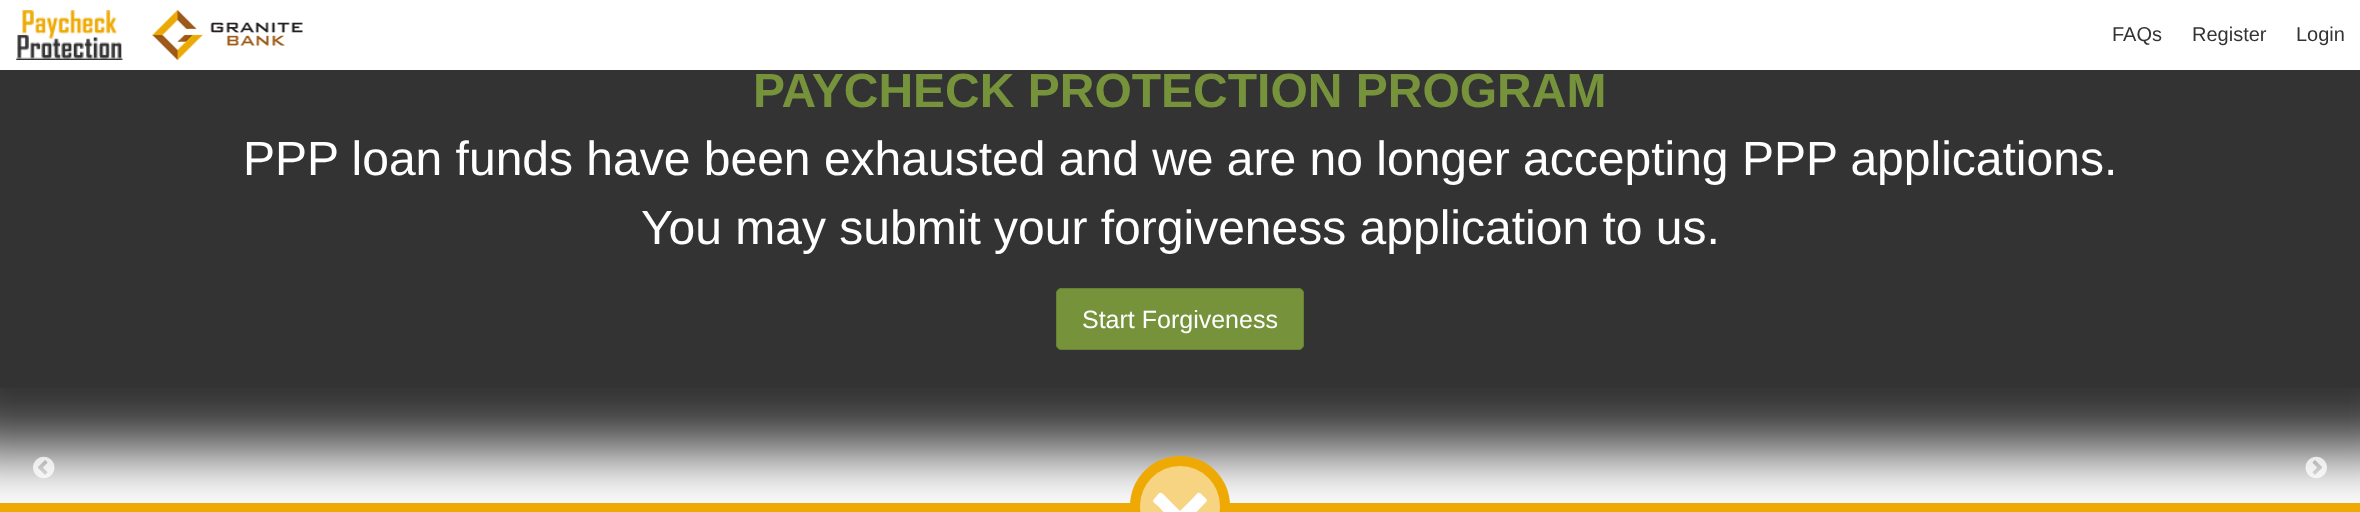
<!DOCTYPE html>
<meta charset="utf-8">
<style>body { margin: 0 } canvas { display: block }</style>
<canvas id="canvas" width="2360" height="512"></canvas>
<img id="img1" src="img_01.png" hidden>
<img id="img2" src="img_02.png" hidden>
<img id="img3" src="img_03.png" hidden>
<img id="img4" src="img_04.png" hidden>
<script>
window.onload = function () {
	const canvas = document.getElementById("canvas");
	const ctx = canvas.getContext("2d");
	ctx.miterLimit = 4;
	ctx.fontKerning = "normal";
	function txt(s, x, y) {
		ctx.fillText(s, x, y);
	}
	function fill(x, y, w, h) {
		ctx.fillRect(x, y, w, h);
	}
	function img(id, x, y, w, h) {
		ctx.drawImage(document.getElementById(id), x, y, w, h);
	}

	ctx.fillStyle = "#FFFFFF";
	fill(0, 0, 2360, 512);
	ctx.save();
	ctx.beginPath();
	ctx.moveTo(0, 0);
	ctx.lineTo(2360, 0);
	ctx.lineTo(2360, 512);
	ctx.lineTo(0, 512);
	ctx.closePath();
	ctx.moveTo(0, 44);
	ctx.lineTo(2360, 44);
	ctx.lineTo(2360, 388);
	ctx.lineTo(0, 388);
	ctx.closePath();
	ctx.clip("evenodd");
	ctx.fillStyle = "rgba(0, 0, 0, 0.8)";
	ctx.filter = "blur(31px)";
	ctx.beginPath();
	ctx.rect(-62, -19, 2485, 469);
	ctx.fill();
	ctx.filter = "none";
	ctx.restore();
	fill(0, 0, 2360, 44);
	img("img1", 16, 10, 107, 50);
	img("img2", 152, 10, 151, 50);
	ctx.fillStyle = "rgba(0, 0, 0, 0.8)";
	fill(0, 70, 2360, 318);
	ctx.fillStyle = "#76933C";
	ctx.beginPath();
	ctx.roundRect(1056.5, 288.5, 247, 61, 4.5);
	ctx.fill();
	ctx.strokeStyle = "#688135";
	ctx.stroke();
	img("img3", 33, 456, 22, 23);
	img("img4", 2305, 456, 22, 23);
	ctx.fillStyle = "#EEA904";
	fill(0, 503, 2360, 9);
	ctx.beginPath();
	ctx.arc(1180, 506, 50, 0, Math.PI * 2);
	ctx.fill();
	ctx.fillStyle = "#F7D482";
	ctx.beginPath();
	ctx.arc(1180, 506, 40, 0, Math.PI * 2);
	ctx.fill();
	ctx.fillStyle = "#FFFFFF";
	ctx.beginPath();
	ctx.moveTo(1206, 502);
	ctx.lineTo(1186, 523);
	ctx.bezierCurveTo(1179, 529, 1181, 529, 1174, 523);
	ctx.lineTo(1158, 506);
	ctx.bezierCurveTo(1154, 503, 1151, 501, 1155, 498);
	ctx.bezierCurveTo(1160, 492, 1160, 491, 1165, 496);
	ctx.lineTo(1180, 511);
	ctx.lineTo(1192, 499);
	ctx.bezierCurveTo(1198, 493, 1198, 490, 1203, 496);
	ctx.bezierCurveTo(1204, 497, 1209, 500, 1206, 502);
	ctx.closePath();
	ctx.fill();
	ctx.font = "20px Liberation Sans";
	ctx.fillStyle = "#333333";
	txt("FAQs", 2112, 41);
	txt("Register", 2192, 41);
	txt("Login", 2296, 41);
	ctx.font = "bold 48px Liberation Sans";
	ctx.fillStyle = "#76933C";
	txt("PAYCHECK PROTECTION PROGRAM", 753, 107);
	ctx.font = "48px Liberation Sans";
	ctx.fillStyle = "#FFFFFF";
	txt("PPP loan funds have been exhausted and we are no longer accepting PPP applications.", 243, 175);
	txt("You may submit your forgiveness application to us.", 641, 244);
	ctx.font = "25px Liberation Sans";
	txt("Start Forgiveness", 1082, 328);
};
</script>
